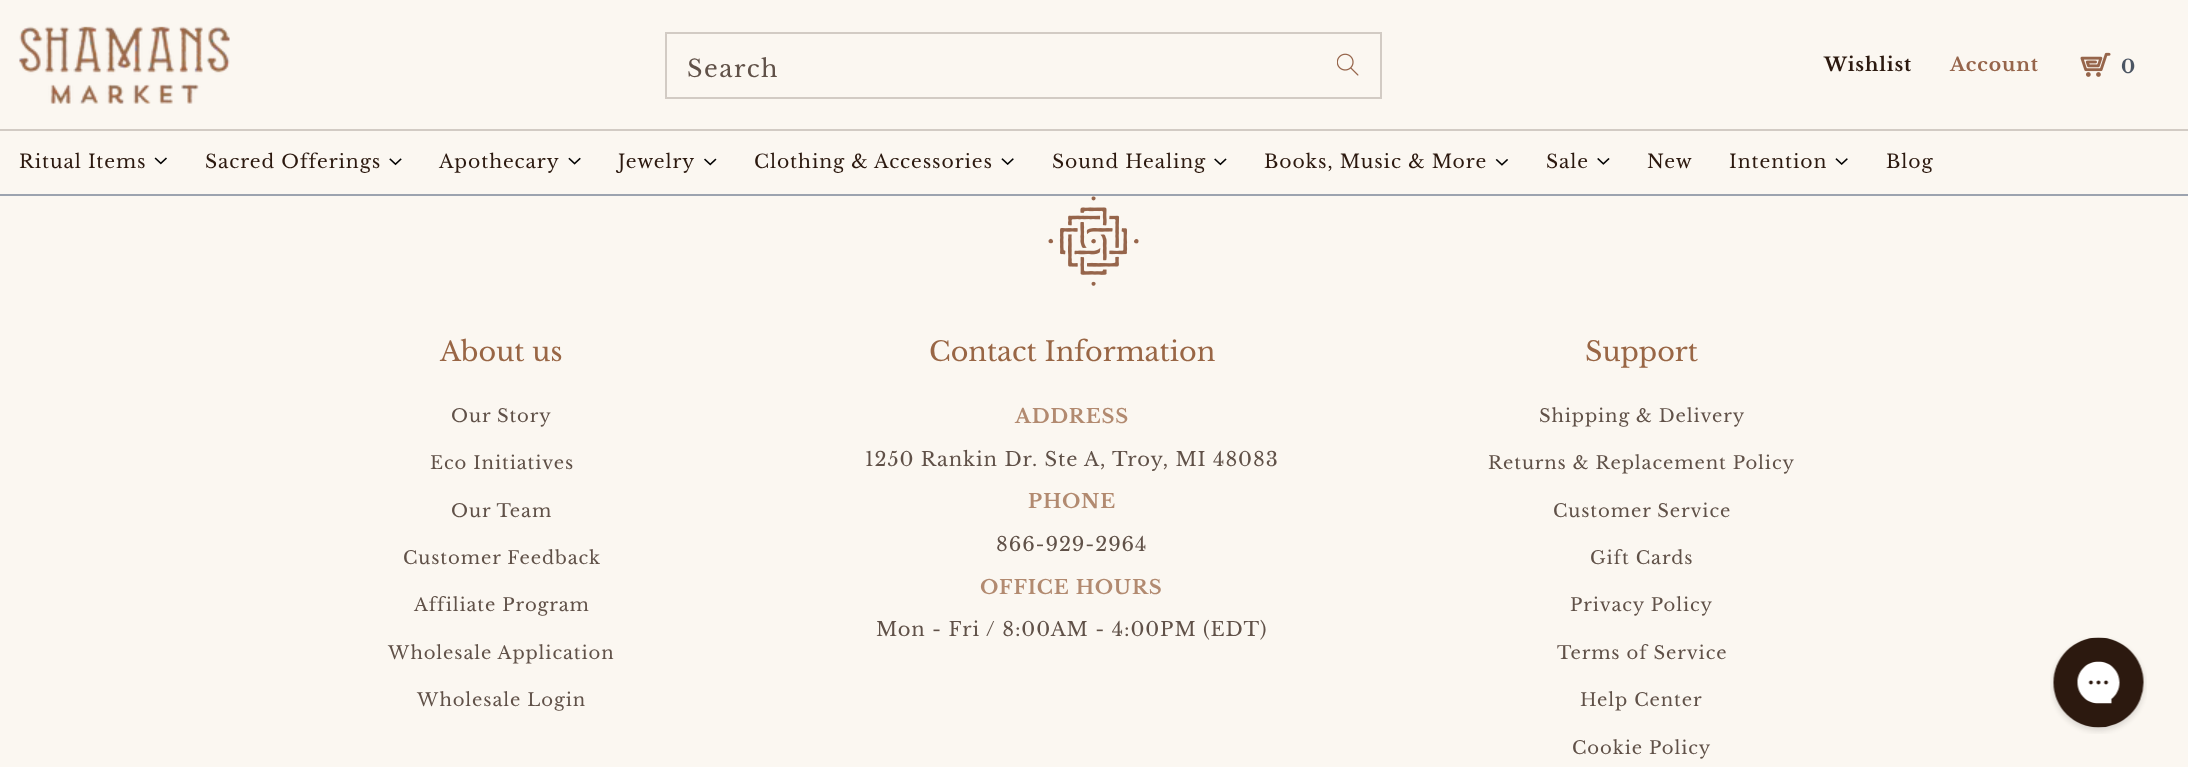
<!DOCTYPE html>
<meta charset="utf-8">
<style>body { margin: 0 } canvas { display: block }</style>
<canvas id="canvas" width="2188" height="767"></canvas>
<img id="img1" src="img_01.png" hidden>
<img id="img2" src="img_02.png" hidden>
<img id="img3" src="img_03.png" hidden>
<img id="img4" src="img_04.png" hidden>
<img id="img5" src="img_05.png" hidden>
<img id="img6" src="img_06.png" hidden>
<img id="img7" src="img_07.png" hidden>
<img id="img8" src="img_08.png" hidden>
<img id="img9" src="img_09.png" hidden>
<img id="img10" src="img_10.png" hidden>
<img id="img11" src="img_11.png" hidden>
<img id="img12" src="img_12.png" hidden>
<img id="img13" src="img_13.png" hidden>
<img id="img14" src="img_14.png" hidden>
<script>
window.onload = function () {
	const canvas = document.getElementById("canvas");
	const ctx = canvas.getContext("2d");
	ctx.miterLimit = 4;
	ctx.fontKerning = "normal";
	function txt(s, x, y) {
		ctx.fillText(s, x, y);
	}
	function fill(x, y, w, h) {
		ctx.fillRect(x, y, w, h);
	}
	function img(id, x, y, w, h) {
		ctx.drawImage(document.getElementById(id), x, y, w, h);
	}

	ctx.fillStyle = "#FBF7F1";
	fill(0, 0, 2188, 767);
	ctx.fillStyle = "#D2CBC4";
	fill(0, 129, 2188, 2);
	img("img1", 19, 26, 211, 78);
	ctx.strokeStyle = "#D2CBC4";
	ctx.lineWidth = 2;
	ctx.strokeRect(666, 33, 715, 65);
	img("img2", 1337, 53, 22, 23);
	img("img3", 2080, 52, 31, 25);
	ctx.fillStyle = "#9CA3AF";
	fill(0, 194, 2188, 2);
	img("img4", 154, 157, 13, 8);
	img("img5", 389, 158, 13, 8);
	img("img6", 568, 157, 13, 8);
	img("img7", 704, 158, 13, 8);
	img("img8", 1001, 158, 13, 7);
	img("img9", 1214, 158, 13, 8);
	img("img10", 1495, 159, 14, 7);
	img("img11", 1597, 158, 13, 7);
	img("img12", 1835, 158, 13, 7);
	img("img13", 1048, 196, 91, 90);
	img("img14", 2050, 637, 97, 97);
	ctx.letterSpacing = "1.5px";
	ctx.font = "24px Libre Baskerville";
	ctx.fillStyle = "#605148";
	txt("Search", 687, 77);
	ctx.letterSpacing = "0.9px";
	ctx.font = "bold 18.75px Libre Baskerville";
	ctx.fillStyle = "#2C190F";
	txt("Wishlist", 1824, 71);
	ctx.fillStyle = "#96654B";
	txt("Account", 1950, 71);
	ctx.fillStyle = "#4B5563";
	txt("0", 2121, 73);
	ctx.font = "18.75px Libre Baskerville";
	ctx.fillStyle = "#2C190F";
	txt("Ritual Items", 19, 168);
	txt("Sacred Offerings", 205, 168);
	txt("Apothecary", 439, 168);
	txt("Jewelry", 618, 168);
	txt("Clothing & Accessories", 754, 168);
	txt("Sound Healing", 1052, 168);
	txt("Books, Music & More", 1264, 168);
	txt("Sale", 1546, 168);
	txt("New", 1647, 168);
	txt("Intention", 1729, 168);
	txt("Blog", 1886, 168);
	ctx.letterSpacing = "0px";
	ctx.font = "27px Libre Baskerville";
	ctx.fillStyle = "#996645";
	txt("About us", 440, 361);
	ctx.letterSpacing = "0.9px";
	ctx.font = "18px Libre Baskerville";
	ctx.fillStyle = "#605148";
	txt("Our Story", 451, 422);
	txt("Eco Initiatives", 430, 469);
	txt("Our Team", 451, 517);
	txt("Customer Feedback", 403, 564);
	txt("Affiliate Program", 414, 611);
	txt("Wholesale Application", 388, 659);
	txt("Wholesale Login", 417, 706);
	ctx.letterSpacing = "0px";
	ctx.font = "27px Libre Baskerville";
	ctx.fillStyle = "#996645";
	txt("Contact Information", 929, 361);
	ctx.letterSpacing = "0.9px";
	ctx.font = "bold 19.5px Libre Baskerville";
	ctx.fillStyle = "#B28A70";
	txt("ADDRESS", 1015, 423);
	ctx.font = "19.5px Libre Baskerville";
	ctx.fillStyle = "#605148";
	txt("1250 Rankin Dr. Ste A, Troy, MI 48083", 865, 466);
	ctx.font = "bold 19.5px Libre Baskerville";
	ctx.fillStyle = "#B28A70";
	txt("PHONE", 1028, 508);
	ctx.font = "19.5px Libre Baskerville";
	ctx.fillStyle = "#605148";
	txt("866-929-2964", 996, 551);
	ctx.font = "bold 19.5px Libre Baskerville";
	ctx.fillStyle = "#B28A70";
	txt("OFFICE HOURS", 980, 594);
	ctx.font = "19.5px Libre Baskerville";
	ctx.fillStyle = "#605148";
	txt("Mon - Fri / 8:00AM - 4:00PM (EDT)", 876, 636);
	ctx.letterSpacing = "0px";
	ctx.font = "27px Libre Baskerville";
	ctx.fillStyle = "#996645";
	txt("Support", 1585, 361);
	ctx.letterSpacing = "0.9px";
	ctx.font = "18px Libre Baskerville";
	ctx.fillStyle = "#605148";
	txt("Shipping & Delivery", 1539, 422);
	txt("Returns & Replacement Policy", 1488, 469);
	txt("Customer Service", 1553, 517);
	txt("Gift Cards", 1590, 564);
	txt("Privacy Policy", 1570, 611);
	txt("Terms of Service", 1557, 659);
	txt("Help Center", 1580, 706);
	txt("Cookie Policy", 1572, 754);
};
</script>
